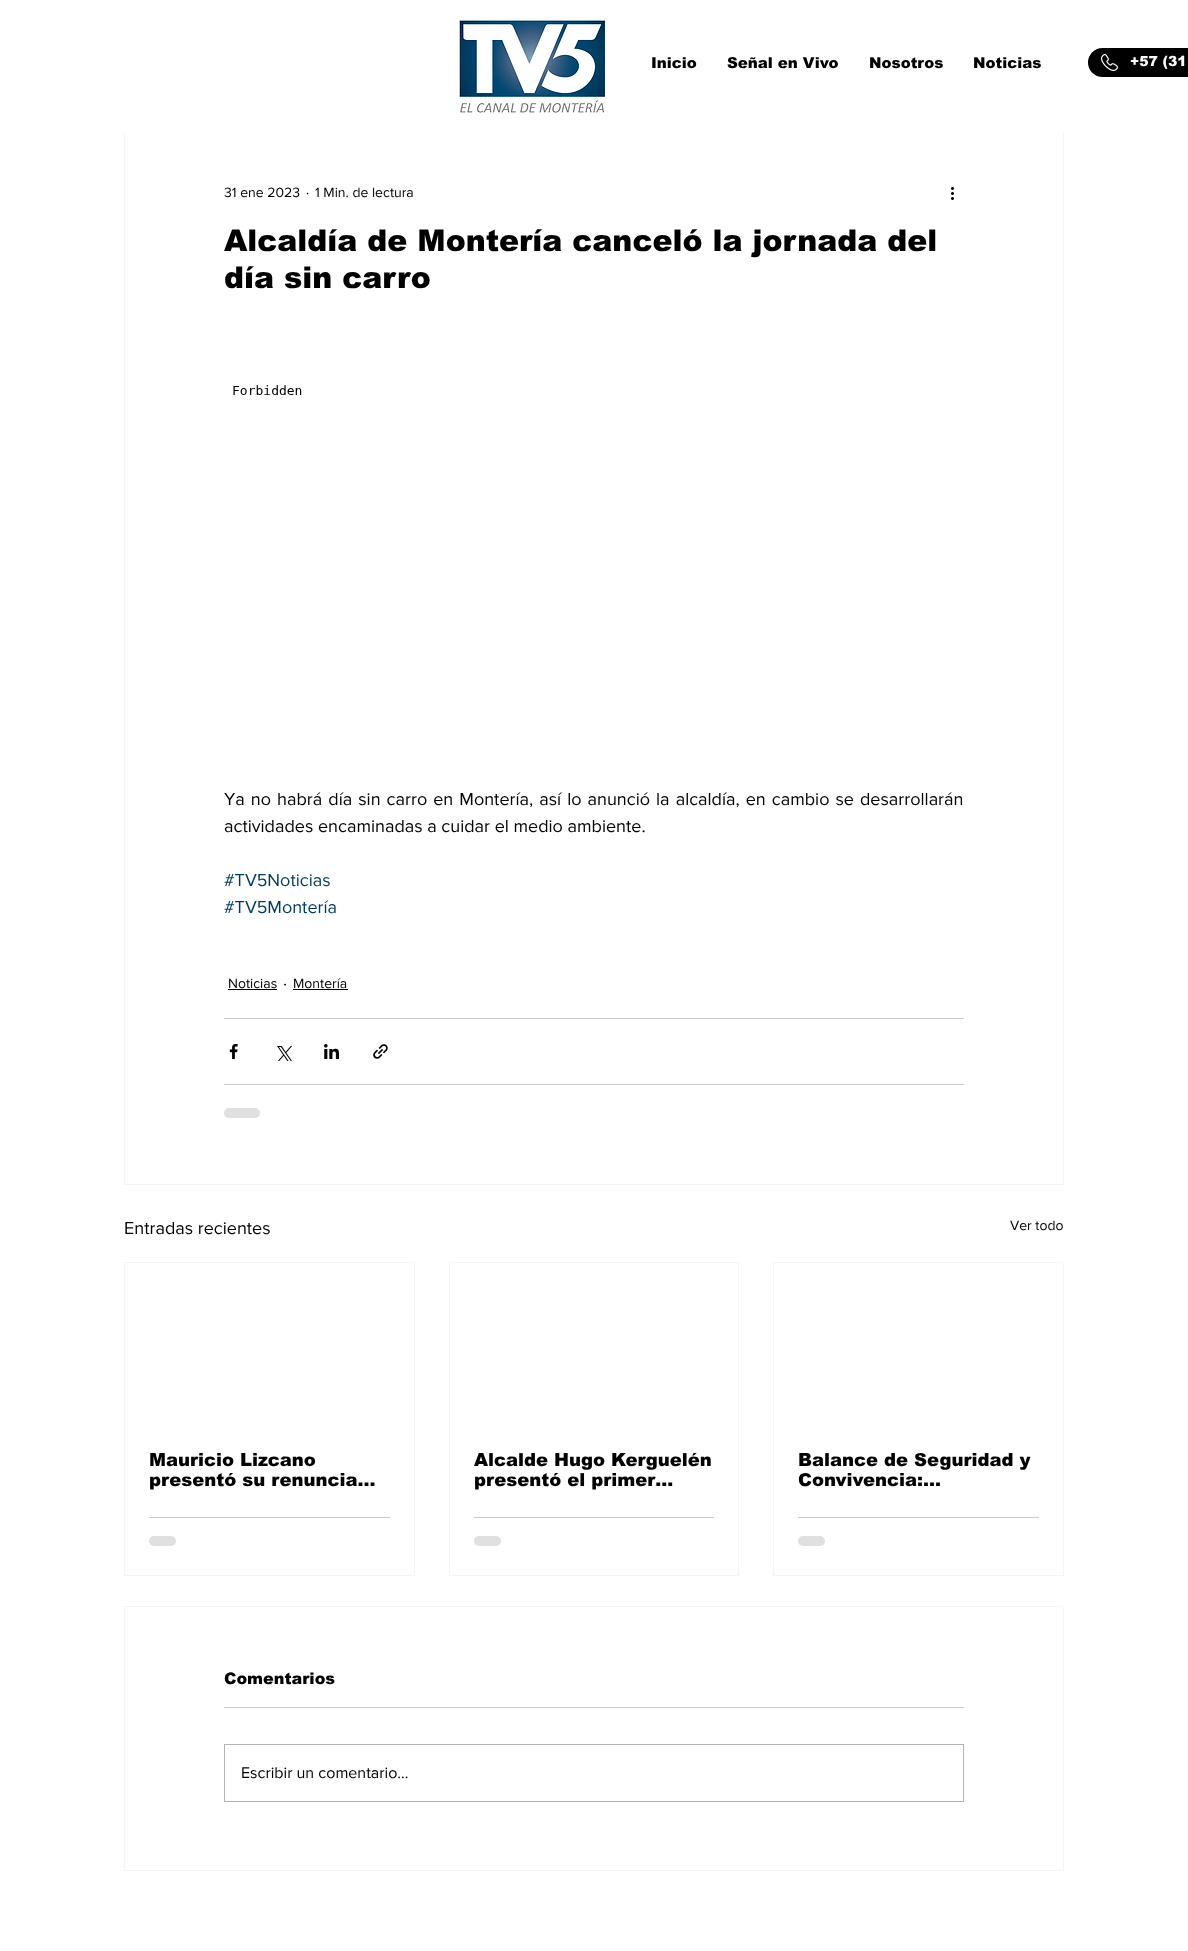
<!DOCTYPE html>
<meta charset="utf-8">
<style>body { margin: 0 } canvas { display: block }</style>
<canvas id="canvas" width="1188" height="1951"></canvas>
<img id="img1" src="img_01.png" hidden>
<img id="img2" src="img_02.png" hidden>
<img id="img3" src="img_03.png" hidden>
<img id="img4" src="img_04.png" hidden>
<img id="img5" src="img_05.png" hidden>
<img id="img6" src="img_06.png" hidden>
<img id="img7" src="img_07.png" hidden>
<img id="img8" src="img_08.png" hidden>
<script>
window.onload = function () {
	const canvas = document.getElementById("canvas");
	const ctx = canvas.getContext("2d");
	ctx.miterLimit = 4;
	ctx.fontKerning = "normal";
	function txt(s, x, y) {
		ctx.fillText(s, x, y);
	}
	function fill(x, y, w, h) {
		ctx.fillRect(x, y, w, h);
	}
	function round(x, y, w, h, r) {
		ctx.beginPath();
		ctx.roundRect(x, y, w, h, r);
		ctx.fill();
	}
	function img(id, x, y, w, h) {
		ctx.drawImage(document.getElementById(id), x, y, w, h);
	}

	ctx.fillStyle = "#FFFFFF";
	fill(0, 0, 1188, 1951);
	img("img1", 459, 20, 146, 93);
	ctx.fillStyle = "#000000";
	round(1088, 48, 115, 29, 14.5);
	img("img2", 1101, 54, 17, 17);
	ctx.strokeStyle = "#F5F5F5";
	ctx.strokeRect(124.5, 119.5, 939, 1065);
	ctx.fillStyle = "#FFFFFF";
	fill(124, 119, 940, 13);
	img("img3", 951, 187, 3, 13);
	img("img4", 233, 385, 69, 10);
	ctx.fillStyle = "#000000";
	fill(228, 989, 49, 1);
	fill(293, 989, 55, 1);
	ctx.fillStyle = "#CCCCCC";
	fill(224, 1018, 740, 1);
	img("img5", 229, 1044, 9, 15);
	img("img6", 277, 1046, 15, 15);
	img("img7", 324, 1044, 15, 15);
	img("img8", 373, 1044, 15, 15);
	fill(224, 1084, 740, 1);
	ctx.fillStyle = "#E0E0E0";
	round(224, 1108, 36, 10, 5);
	ctx.strokeRect(124.5, 1262.5, 290, 313);
	ctx.fillStyle = "#CCCCCC";
	fill(149, 1517, 241, 1);
	ctx.fillStyle = "#E0E0E0";
	round(149, 1536, 27, 10, 5);
	ctx.strokeRect(449.5, 1262.5, 289, 313);
	ctx.fillStyle = "#CCCCCC";
	fill(474, 1517, 240, 1);
	ctx.fillStyle = "#E0E0E0";
	round(474, 1536, 27, 10, 5);
	ctx.strokeRect(773.5, 1262.5, 290, 313);
	ctx.fillStyle = "#CCCCCC";
	fill(798, 1517, 241, 1);
	ctx.fillStyle = "#E0E0E0";
	round(798, 1536, 27, 10, 5);
	ctx.strokeRect(124.5, 1606.5, 939, 264);
	ctx.fillStyle = "#CCCCCC";
	fill(224, 1707, 740, 1);
	ctx.strokeStyle = "#B3B3B3";
	ctx.strokeRect(224.5, 1744.5, 739, 57);
	ctx.font = "900 15px arial";
	ctx.fillStyle = "#000000";
	txt("Inicio", 651, 68);
	txt("Señal en Vivo", 727, 68);
	txt("Nosotros", 869, 68);
	txt("Noticias", 973, 68);
	ctx.font = "900 14px arial";
	ctx.fillStyle = "#FFFFFF";
	txt("+57 (31", 1130, 66);
	ctx.font = "14px 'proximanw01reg'";
	ctx.fillStyle = "#000000";
	txt("31 ene 2023", 224, 197);
	txt("·", 306, 197);
	txt("1 Min. de lectura", 315, 197);
	ctx.font = "900 30px arial";
	txt("Alcaldía de Montería canceló la jornada del", 224, 251);
	txt("día sin carro", 224, 288);
	ctx.wordSpacing = "1.4px";
	ctx.font = "18px 'proximanw01reg'";
	txt("Ya no habrá día sin carro en Montería, así lo anunció la alcaldía, en cambio se desarrollarán", 224, 805);
	ctx.wordSpacing = "0px";
	txt("actividades encaminadas a cuidar el medio ambiente.", 224, 832);
	ctx.fillStyle = "#003A5E";
	txt("#TV5Noticias", 224, 886);
	txt("#TV5Montería", 224, 913);
	ctx.font = "14px 'proximanw01reg'";
	ctx.fillStyle = "#000000";
	txt("Noticias", 228, 988);
	ctx.font = "18px 'proximanw01reg'";
	txt("·", 283, 989);
	ctx.font = "14px 'proximanw01reg'";
	txt("Montería", 293, 988);
	ctx.font = "18px 'proximanw01reg'";
	txt("Entradas recientes", 124, 1234);
	ctx.font = "14px 'proximanw01reg'";
	txt("Ver todo", 1010, 1230);
	ctx.font = "900 18px arial";
	txt("Mauricio Lizcano", 149, 1466);
	txt("presentó su renuncia…", 149, 1486);
	txt("Alcalde Hugo Kerguelén", 474, 1466);
	txt("presentó el primer…", 474, 1486);
	txt("Balance de Seguridad y", 798, 1466);
	txt("Convivencia:…", 798, 1486);
	ctx.font = "900 16px arial";
	txt("Comentarios", 224, 1684);
	ctx.font = "16px 'proximanw01reg'";
	txt("Escribir un comentario...", 241, 1778);
};
</script>
